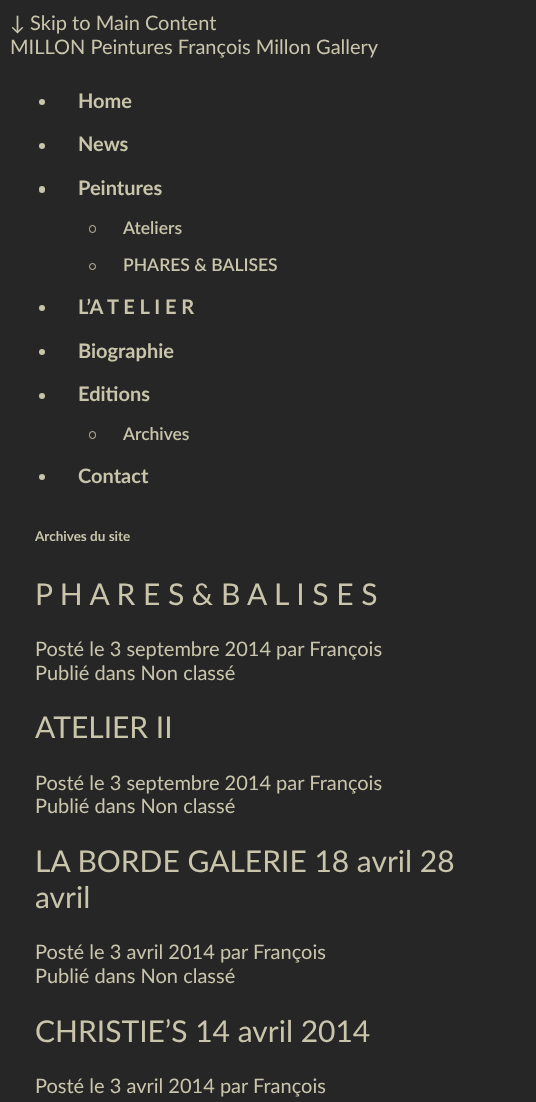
<!DOCTYPE html>
<meta charset="utf-8">
<style>body { margin: 0 } canvas { display: block }</style>
<canvas id="canvas" width="536" height="1102"></canvas>
<script>
window.onload = function () {
	const canvas = document.getElementById("canvas");
	const ctx = canvas.getContext("2d");
	ctx.miterLimit = 4;
	ctx.fontKerning = "normal";
	function txt(s, x, y) {
		ctx.fillText(s, x, y);
	}
	function fill(x, y, w, h) {
		ctx.fillRect(x, y, w, h);
	}
	function round(x, y, w, h, r) {
		ctx.beginPath();
		ctx.roundRect(x, y, w, h, r);
		ctx.fill();
	}

	ctx.fillStyle = "#262626";
	fill(0, 0, 536, 1102);
	ctx.fillStyle = "#C9C5AB";
	ctx.beginPath();
	ctx.arc(42, 102, 3, 0, Math.PI * 2);
	ctx.fill();
	ctx.beginPath();
	ctx.arc(42, 146, 3, 0, Math.PI * 2);
	ctx.fill();
	round(39, 186, 6, 7, 3);
	ctx.beginPath();
	ctx.roundRect(89.5, 225.5, 6, 7, 3);
	ctx.strokeStyle = "#C9C5AB";
	ctx.stroke();
	ctx.beginPath();
	ctx.arc(92.5, 266.5, 3, 0, Math.PI * 2);
	ctx.stroke();
	ctx.beginPath();
	ctx.arc(42, 308, 3, 0, Math.PI * 2);
	ctx.fill();
	ctx.beginPath();
	ctx.arc(42, 352, 3, 0, Math.PI * 2);
	ctx.fill();
	ctx.beginPath();
	ctx.arc(42, 396, 3, 0, Math.PI * 2);
	ctx.fill();
	ctx.beginPath();
	ctx.roundRect(89.5, 431.5, 6, 7, 3);
	ctx.stroke();
	ctx.beginPath();
	ctx.arc(42, 477, 3, 0, Math.PI * 2);
	ctx.fill();
	ctx.font = "20px Lato";
	txt("↓ Skip to Main Content", 10, 30);
	txt("MILLON Peintures François Millon Gallery", 10, 54);
	ctx.font = "bold 20px Lato";
	txt("Home", 78, 108);
	txt("News", 78, 151);
	txt("Peintures", 78, 195);
	ctx.font = "600 17.5px Lato";
	txt("Ateliers", 123, 234);
	txt("PHARES & BALISES", 123, 271);
	ctx.font = "bold 20px Lato";
	txt("L’A T E L I E R", 78, 314);
	txt("Biographie", 78, 358);
	txt("Editions", 78, 401);
	ctx.font = "600 17.5px Lato";
	txt("Archives", 123, 440);
	ctx.font = "bold 20px Lato";
	txt("Contact", 78, 483);
	ctx.font = "bold 13.5px Lato";
	txt("Archives du site", 35, 541);
	ctx.font = "30px Lato";
	txt("P H A R E S & B A L I S E S", 35, 605);
	ctx.font = "20px Lato";
	txt("Posté le 3 septembre 2014 par François", 35, 656);
	txt("Publié dans Non classé", 35, 680);
	ctx.font = "30px Lato";
	txt("ATELIER II", 35, 738);
	ctx.font = "20px Lato";
	txt("Posté le 3 septembre 2014 par François", 35, 790);
	txt("Publié dans Non classé", 35, 813);
	ctx.font = "30px Lato";
	txt("LA BORDE GALERIE 18 avril 28", 35, 872);
	txt("avril", 35, 908);
	ctx.font = "20px Lato";
	txt("Posté le 3 avril 2014 par François", 35, 959);
	txt("Publié dans Non classé", 35, 983);
	ctx.font = "30px Lato";
	txt("CHRISTIE’S 14 avril 2014", 35, 1042);
	ctx.font = "20px Lato";
	txt("Posté le 3 avril 2014 par François", 35, 1093);
};
</script>
